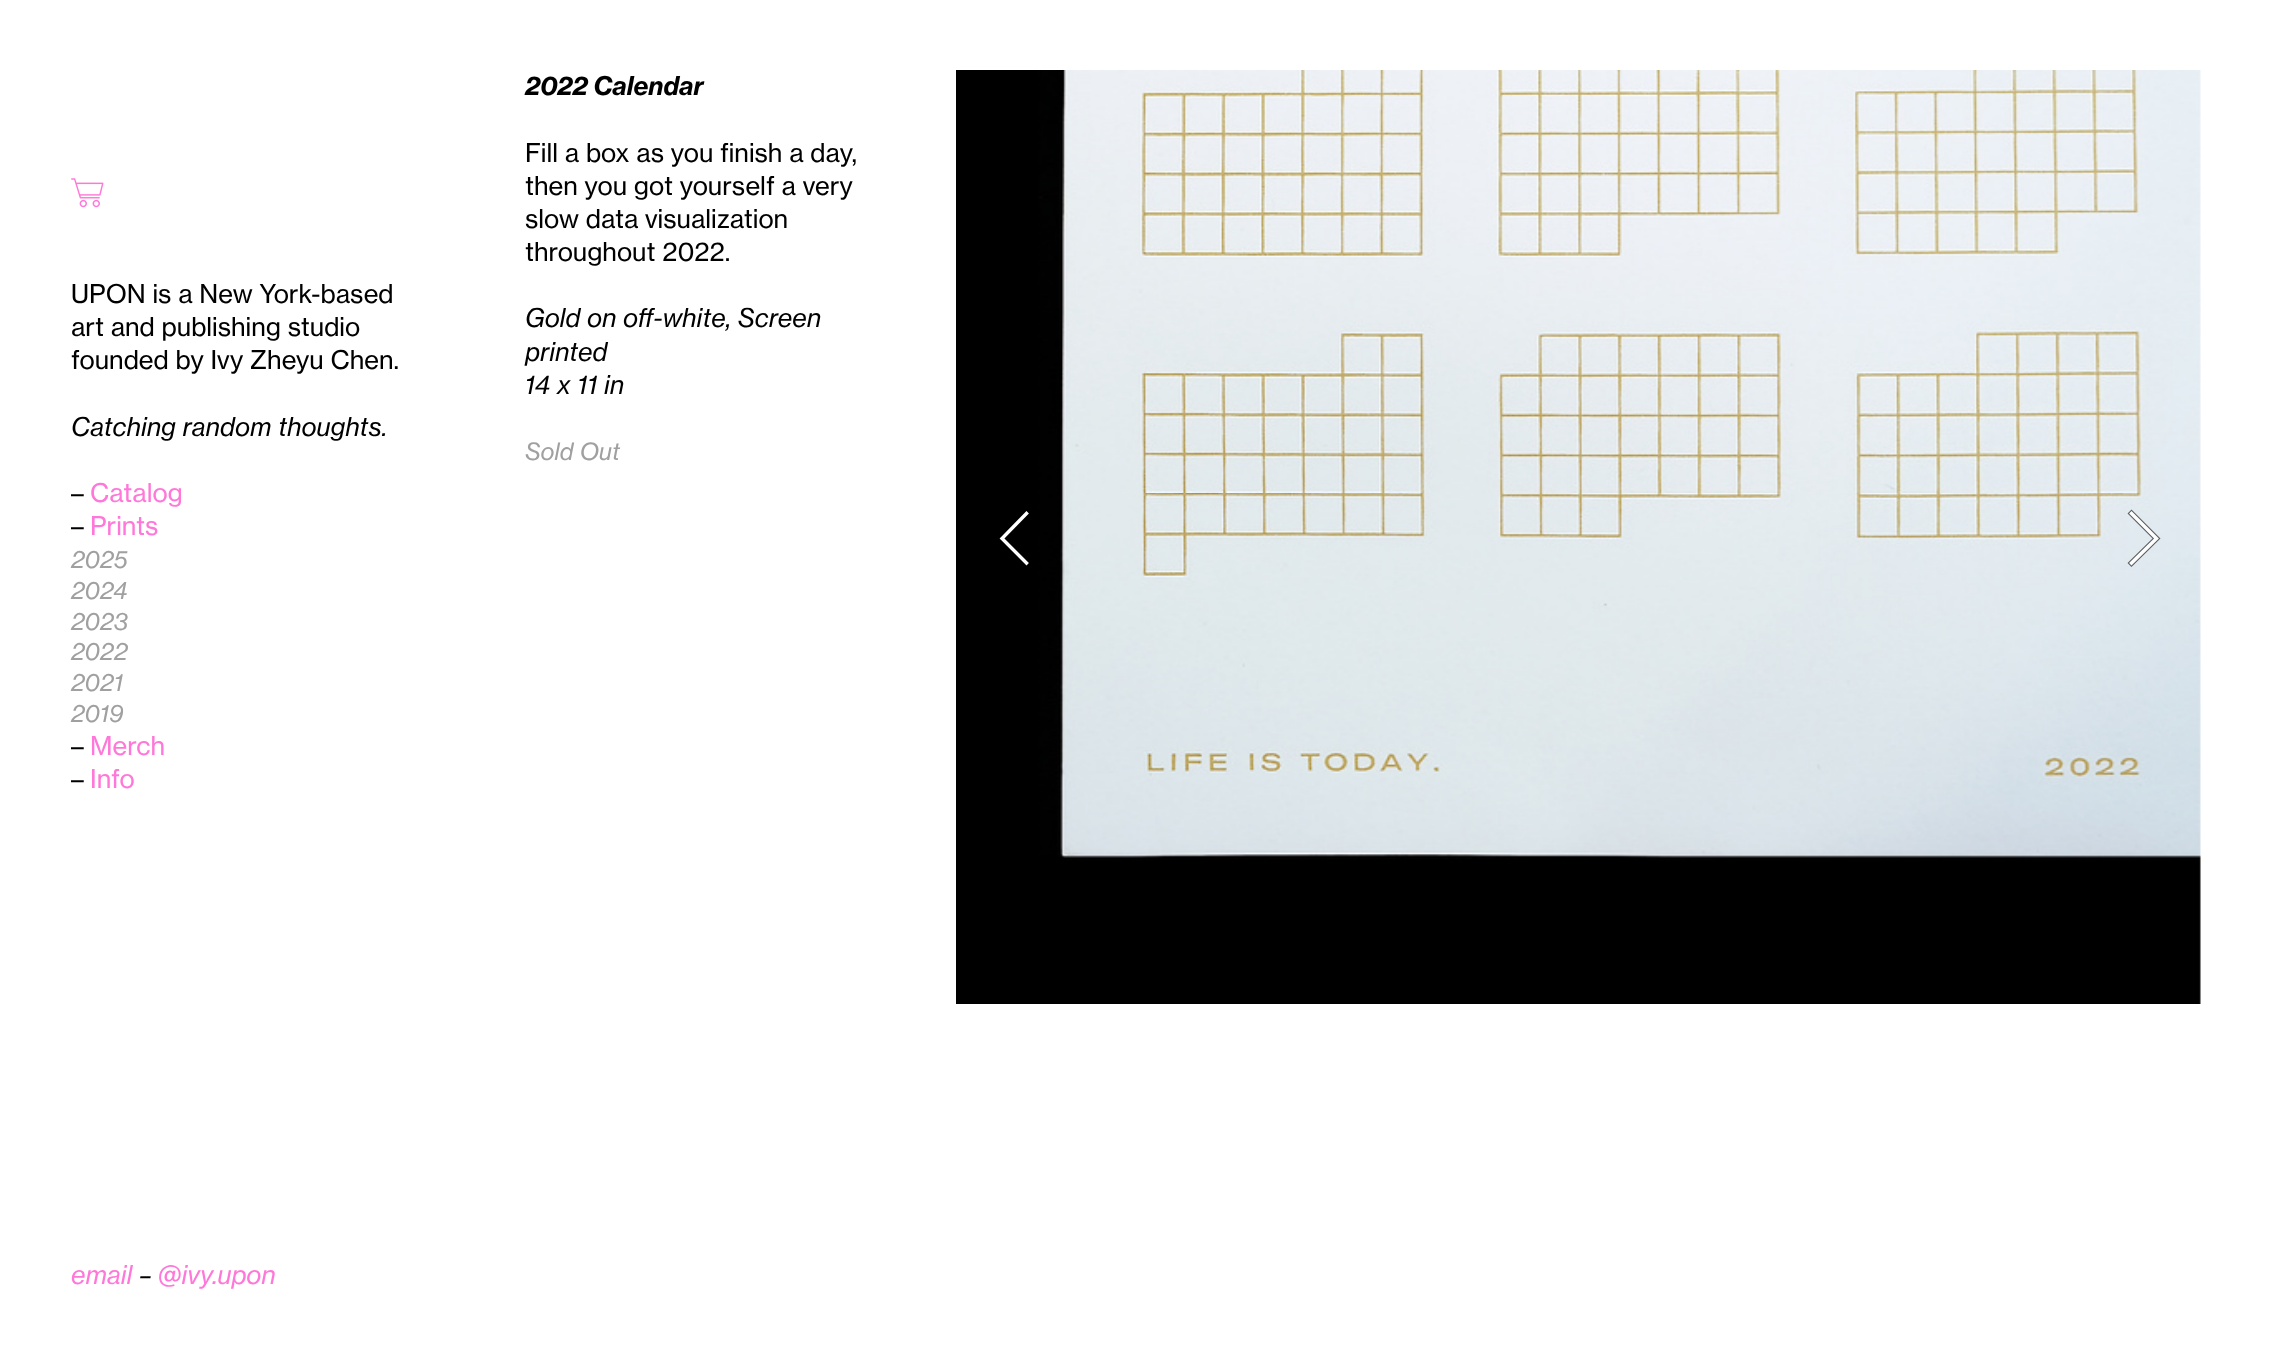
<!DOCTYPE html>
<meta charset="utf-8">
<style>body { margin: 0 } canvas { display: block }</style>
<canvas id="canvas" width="2271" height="1362"></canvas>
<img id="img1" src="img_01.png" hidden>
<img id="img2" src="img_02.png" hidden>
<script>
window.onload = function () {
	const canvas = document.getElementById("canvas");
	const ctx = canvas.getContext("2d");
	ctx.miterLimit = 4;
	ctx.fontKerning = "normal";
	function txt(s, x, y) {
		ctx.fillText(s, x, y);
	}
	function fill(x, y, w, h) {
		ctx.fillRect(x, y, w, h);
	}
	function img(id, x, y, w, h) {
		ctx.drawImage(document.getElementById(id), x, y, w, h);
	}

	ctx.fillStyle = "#FFFFFF";
	fill(0, 0, 2271, 1362);
	img("img1", 71, 178, 33, 30);
	img("img2", 956, 70, 1245, 934);
	ctx.beginPath();
	ctx.moveTo(1026.5, 563);
	ctx.lineTo(1002, 538.5);
	ctx.lineTo(1026.5, 513.5);
	ctx.strokeStyle = "#FFFFFF";
	ctx.lineWidth = 3.4;
	ctx.lineCap = "square";
	ctx.stroke();
	ctx.beginPath();
	ctx.moveTo(2131.5, 563);
	ctx.lineTo(2156.5, 538.5);
	ctx.lineTo(2131.5, 513.5);
	ctx.strokeStyle = "rgba(0, 0, 0, 0.6)";
	ctx.lineWidth = 5.6;
	ctx.stroke();
	ctx.beginPath();
	ctx.moveTo(2131.5, 563);
	ctx.lineTo(2156.5, 538.5);
	ctx.lineTo(2131.5, 513.5);
	ctx.strokeStyle = "#FFFFFF";
	ctx.lineWidth = 3.4;
	ctx.stroke();
	ctx.font = "25.5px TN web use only";
	ctx.fillStyle = "#000000";
	txt("UPON is a New York-based", 71, 303);
	txt("art and publishing studio", 71, 336);
	txt("founded by Ivy Zheyu Chen.", 71, 369);
	ctx.font = "italic 25.5px TN web use only";
	txt("Catching random thoughts.", 71, 436);
	ctx.font = "25.5px TN web use only";
	txt("–", 71, 502);
	ctx.fillStyle = "#FF77D8";
	txt("Catalog", 90, 502);
	ctx.fillStyle = "#000000";
	txt("–", 71, 535);
	ctx.fillStyle = "#FF77D8";
	txt("Prints", 90, 535);
	ctx.font = "italic 23.5px TN web use only";
	ctx.fillStyle = "#A0A0A0";
	txt("2025", 71, 568);
	txt("2024", 71, 599);
	txt("2023", 71, 630);
	txt("2022", 71, 660);
	txt("2021", 71, 691);
	txt("2019", 71, 722);
	ctx.font = "25.5px TN web use only";
	ctx.fillStyle = "#000000";
	txt("–", 71, 755);
	ctx.fillStyle = "#FF77D8";
	txt("Merch", 90, 755);
	ctx.fillStyle = "#000000";
	txt("–", 71, 788);
	ctx.fillStyle = "#FF77D8";
	txt("Info", 90, 788);
	ctx.font = "italic bold 25.5px TN web use only";
	ctx.fillStyle = "#000000";
	txt("2022 Calendar", 525, 95);
	ctx.font = "25.5px TN web use only";
	txt("Fill a box as you finish a day,", 525, 162);
	txt("then you got yourself a very", 525, 195);
	txt("slow data visualization", 525, 228);
	txt("throughout 2022.", 525, 261);
	ctx.font = "italic 25.5px TN web use only";
	txt("Gold on off-white, Screen", 525, 327);
	txt("printed", 525, 361);
	txt("14 x 11 in", 525, 394);
	ctx.font = "italic 23.5px TN web use only";
	ctx.fillStyle = "#A0A0A0";
	txt("Sold Out", 525, 460);
	ctx.font = "italic 25.5px TN web use only";
	ctx.fillStyle = "#FF77D8";
	txt("email", 71, 1284);
	ctx.fillStyle = "#000000";
	txt("–", 139, 1284);
	ctx.fillStyle = "#FF77D8";
	txt("@ivy.upon", 158, 1284);
};
</script>
